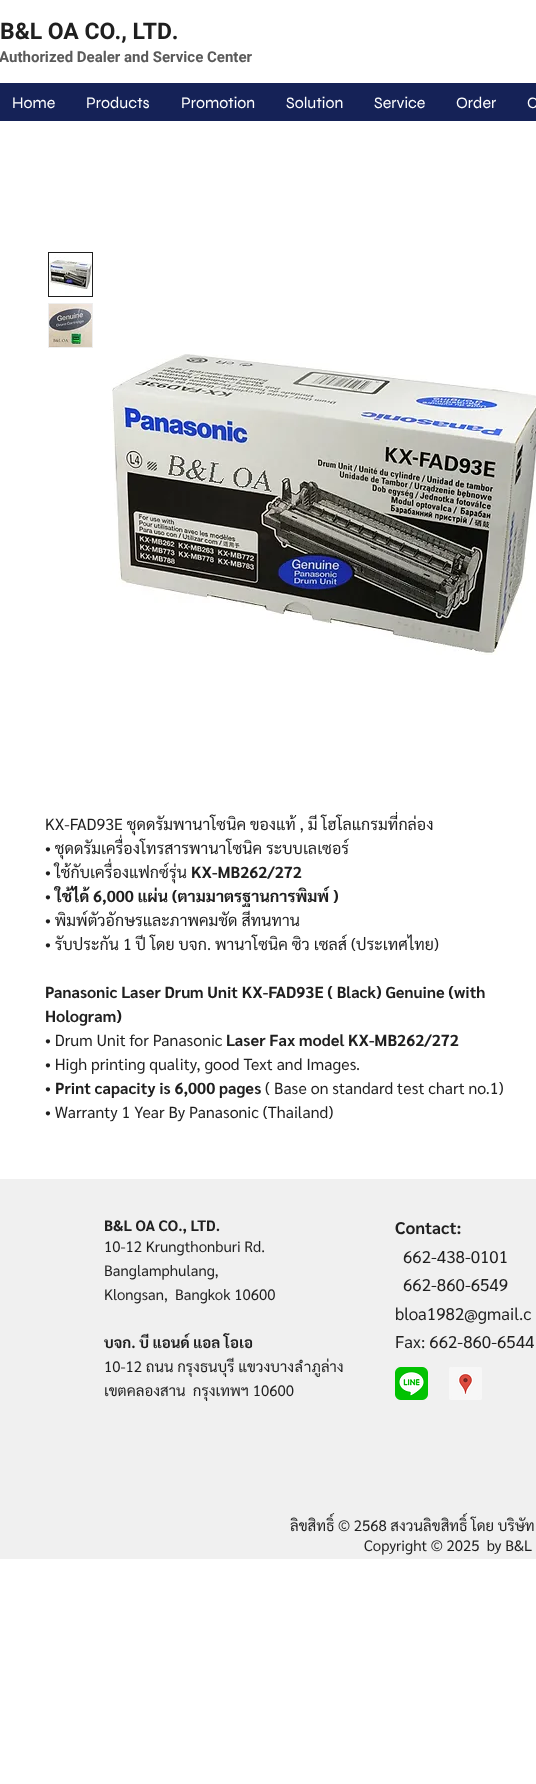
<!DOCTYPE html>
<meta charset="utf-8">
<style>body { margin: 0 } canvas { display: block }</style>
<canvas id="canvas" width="536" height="1784"></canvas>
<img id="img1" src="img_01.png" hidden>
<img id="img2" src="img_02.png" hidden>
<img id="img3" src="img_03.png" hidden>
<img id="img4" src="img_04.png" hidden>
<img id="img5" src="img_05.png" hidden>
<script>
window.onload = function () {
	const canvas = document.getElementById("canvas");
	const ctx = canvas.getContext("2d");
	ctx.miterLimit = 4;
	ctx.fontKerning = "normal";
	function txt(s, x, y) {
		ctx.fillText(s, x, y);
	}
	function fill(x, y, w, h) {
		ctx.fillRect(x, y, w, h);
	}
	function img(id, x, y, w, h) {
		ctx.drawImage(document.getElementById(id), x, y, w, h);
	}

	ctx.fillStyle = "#FFFFFF";
	fill(0, 0, 536, 1784);
	ctx.fillStyle = "#152257";
	fill(0, 83, 536, 38);
	ctx.strokeStyle = "#1F1F1F";
	ctx.strokeRect(48.5, 252.5, 44, 44);
	img("img1", 49, 253, 43, 43);
	ctx.fillStyle = "#EEEEEE";
	fill(48, 303, 45, 45);
	img("img2", 49, 304, 43, 43);
	img("img3", 110, 354, 426, 301);
	ctx.fillStyle = "#F0F0F0";
	fill(0, 1179, 536, 380);
	img("img4", 395, 1367, 33, 33);
	img("img5", 449, 1367, 33, 33);
	ctx.font = "bold 23px Heebo";
	ctx.fillStyle = "#1F1F1F";
	txt("B&L OA CO., LTD.", 0, 39);
	ctx.font = "bold 15px Heebo";
	ctx.fillStyle = "#5A5A5A";
	txt("Authorized Dealer and Service Center", -1, 62);
	ctx.font = "16px Syne";
	ctx.fillStyle = "#FFFFFF";
	txt("Home", 12, 108);
	txt("Products", 86, 108);
	txt("Promotion", 181, 108);
	txt("Solution", 286, 108);
	txt("Service", 374, 108);
	txt("Order", 456, 108);
	txt("C", 527, 108);
	ctx.save();
	ctx.beginPath();
	ctx.rect(45, 812, 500, 312);
	ctx.clip();
	ctx.font = "16px Sarabun";
	ctx.fillStyle = "#1F1F1F";
	txt("KX-FAD93E ชุดดรัมพานาโซนิค ของแท้ , มี โฮโลแกรมที่กล่อง", 45, 830);
	ctx.restore();
	ctx.font = "16px Sarabun";
	ctx.fillStyle = "#1F1F1F";
	txt("• ชุดดรัมเครื่องโทรสารพานาโซนิค ระบบเลเซอร์", 45, 854);
	txt("• ใช้กับเครื่องแฟกซ์รุ่น", 45, 878);
	ctx.font = "bold 16px Sarabun";
	txt("KX-MB262/272", 191, 878);
	ctx.font = "16px Sarabun";
	txt("•", 45, 902);
	ctx.font = "bold 16px Sarabun";
	txt("ใช้ได้ 6,000 แผ่น (ตามมาตรฐานการพิมพ์ )", 55, 902);
	ctx.font = "16px Sarabun";
	txt("• พิมพ์ตัวอักษรและภาพคมชัด สีทนทาน", 45, 926);
	txt("• รับประกัน 1 ปี โดย บจก. พานาโซนิค ซิว เซลส์ (ประเทศไทย)", 45, 950);
	ctx.font = "bold 16px Sarabun";
	txt("Panasonic Laser Drum Unit KX-FAD93E ( Black) Genuine (with", 45, 998);
	txt("Hologram)", 45, 1022);
	ctx.font = "16px Sarabun";
	txt("• Drum Unit for Panasonic", 45, 1046);
	ctx.font = "bold 16px Sarabun";
	txt("Laser Fax model KX-MB262/272", 226, 1046);
	ctx.font = "16px Sarabun";
	txt("• High printing quality, good Text and Images.", 45, 1070);
	txt("•", 45, 1094);
	ctx.font = "bold 16px Sarabun";
	txt("Print capacity is 6,000 pages", 55, 1094);
	ctx.font = "16px Sarabun";
	txt("( Base on standard test chart no.1)", 265, 1094);
	txt("• Warranty 1 Year By Panasonic (Thailand)", 45, 1118);
	ctx.font = "bold 15px Sarabun";
	txt("B&L OA CO., LTD.", 104, 1231);
	ctx.font = "15px Sarabun";
	txt("10-12 Krungthonburi Rd.", 104, 1252);
	txt("Banglamphulang,", 104, 1276);
	txt("Klongsan,  Bangkok 10600", 104, 1300);
	ctx.font = "bold 15px Sarabun";
	txt("บจก. บี แอนด์ แอล โอเอ", 104, 1348);
	ctx.font = "15px Sarabun";
	txt("10-12 ถนน กรุงธนบุรี แขวงบางลำภูล่าง", 104, 1372);
	txt("เขตคลองสาน  กรุงเทพฯ 10600", 104, 1396);
	ctx.font = "bold 17px Sarabun";
	txt("Contact:", 395, 1234);
	ctx.font = "17px Sarabun";
	txt("662-438-0101", 403, 1263);
	txt("662-860-6549", 403, 1291);
	txt("bloa1982@gmail.c", 395, 1320);
	txt("Fax: 662-860-6544", 395, 1348);
	ctx.font = "15px Sarabun";
	txt("ลิขสิทธิ์ © 2568 สงวนลิขสิทธิ์ โดย บริษัท", 290, 1531);
	txt("Copyright © 2025  by B&L", 364, 1551);
};
</script>
